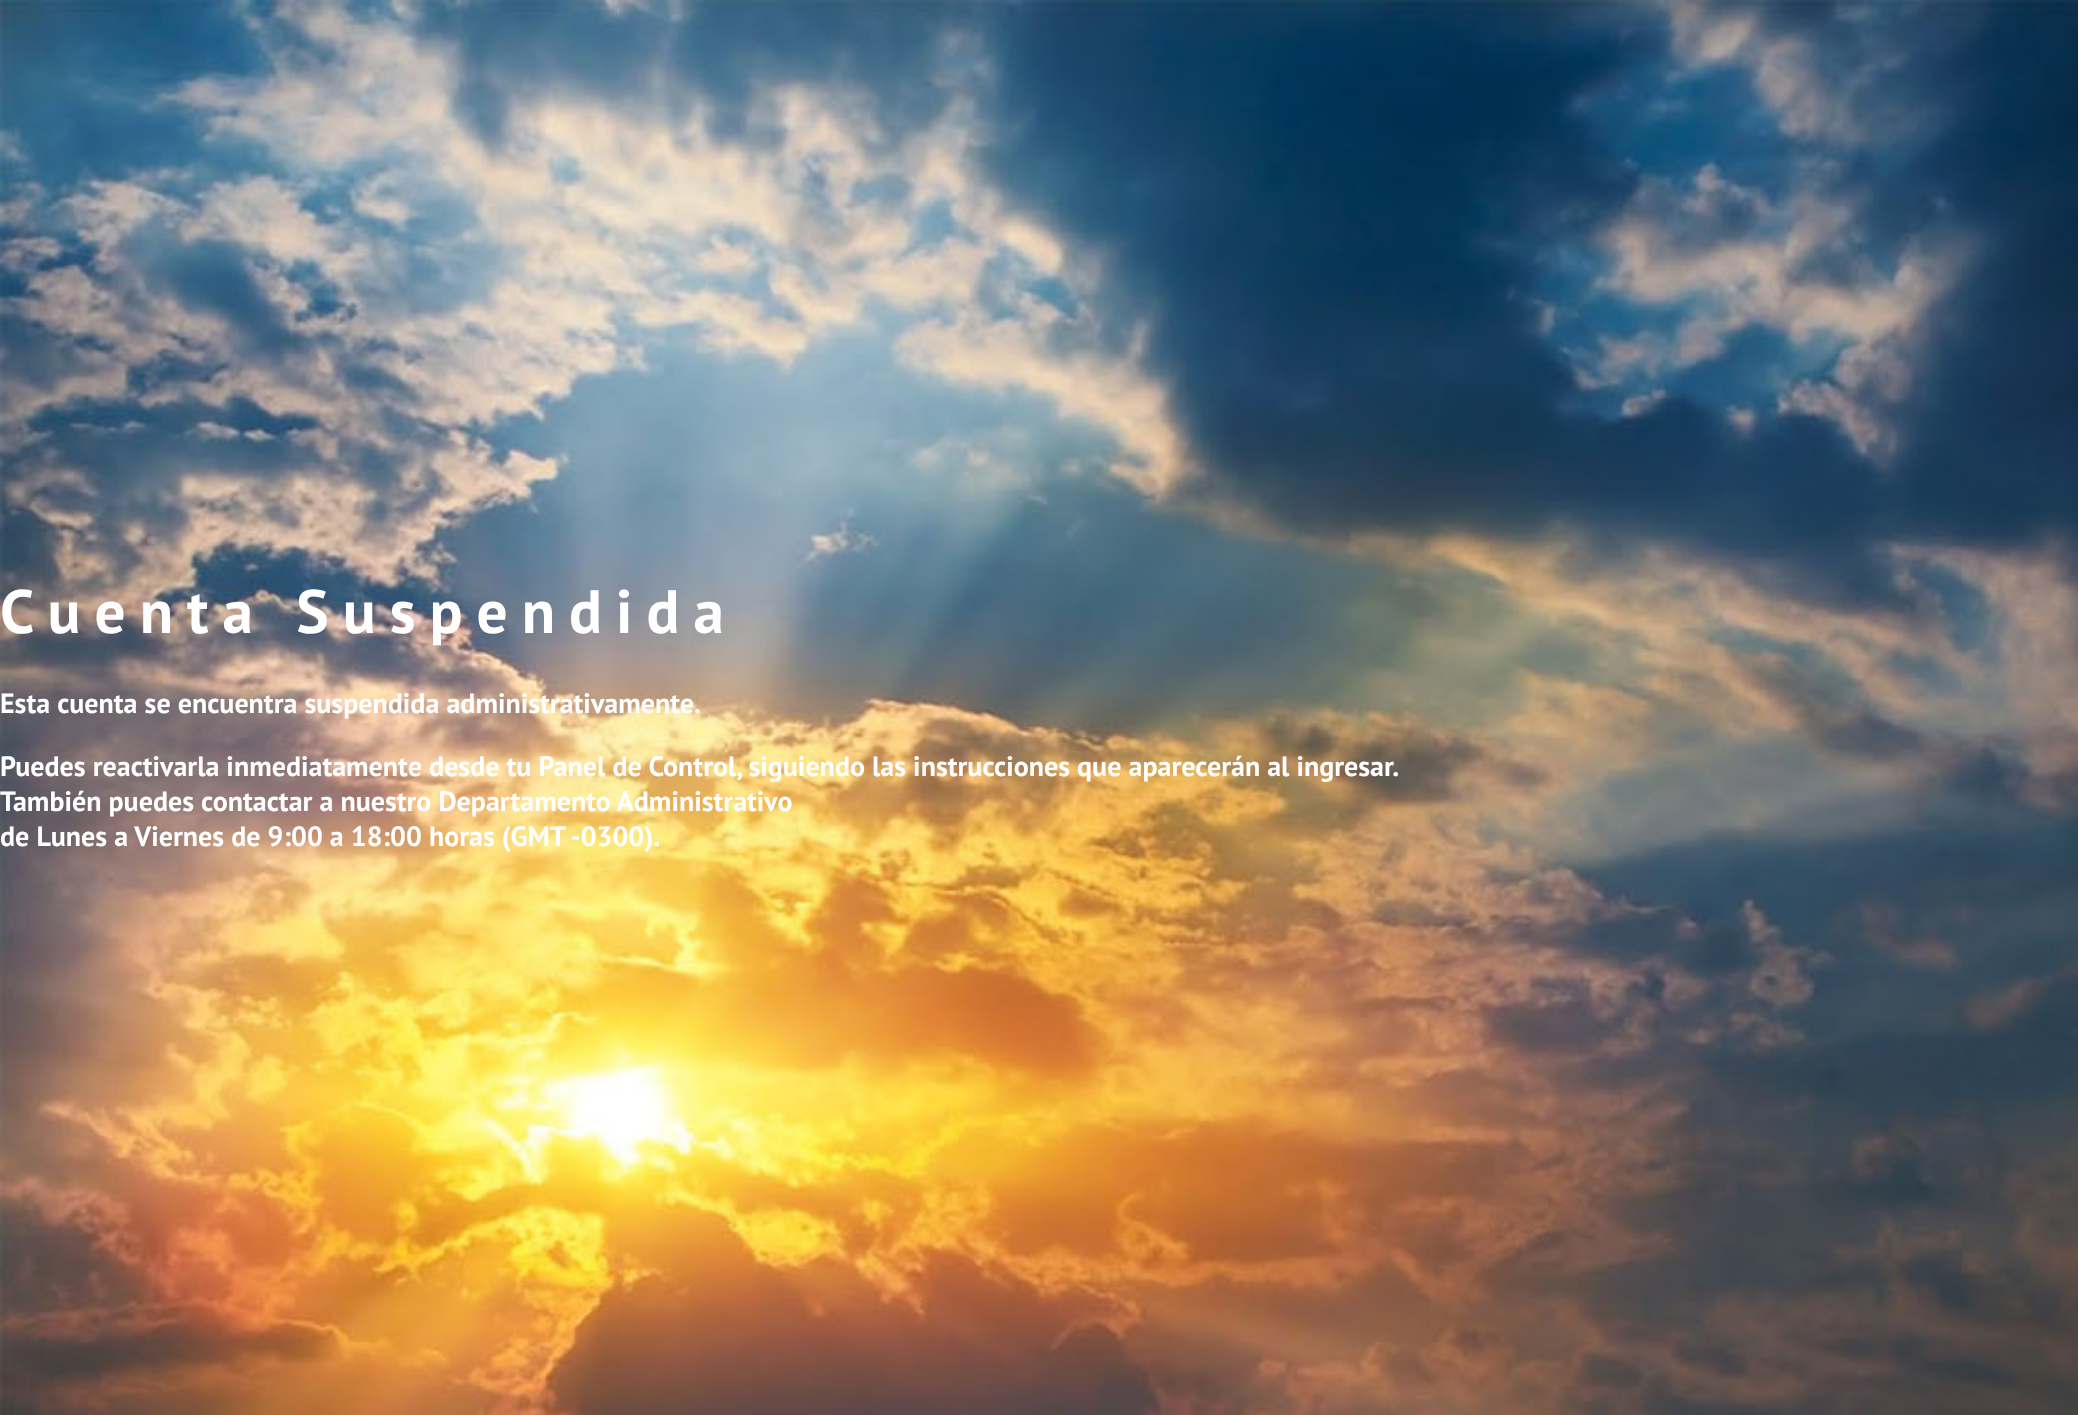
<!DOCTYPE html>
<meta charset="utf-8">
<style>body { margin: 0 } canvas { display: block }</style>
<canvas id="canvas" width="2078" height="1415"></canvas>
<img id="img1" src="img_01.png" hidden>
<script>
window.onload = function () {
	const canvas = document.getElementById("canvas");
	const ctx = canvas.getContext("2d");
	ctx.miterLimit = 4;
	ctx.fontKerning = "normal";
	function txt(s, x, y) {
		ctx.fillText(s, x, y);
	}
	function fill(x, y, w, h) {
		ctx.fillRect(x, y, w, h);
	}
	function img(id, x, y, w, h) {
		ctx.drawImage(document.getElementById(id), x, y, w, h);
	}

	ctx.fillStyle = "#FFFFFF";
	fill(0, 0, 2078, 1415);
	img("img1", 0, 0, 2078, 1415);
	ctx.letterSpacing = "14px";
	ctx.font = "bold 61.25px PT Sans";
	txt("Cuenta Suspendida", 0, 633);
	ctx.letterSpacing = "0px";
	ctx.font = "bold 28px PT Sans";
	txt("Esta cuenta se encuentra suspendida administrativamente.", 0, 713);
	txt("Puedes reactivarla inmediatamente desde tu Panel de Control, siguiendo las instrucciones que aparecerán al ingresar.", 0, 776);
	txt("También puedes contactar a nuestro Departamento Administrativo", 0, 811);
	txt("de Lunes a Viernes de 9:00 a 18:00 horas (GMT -0300).", 0, 846);
};
</script>
